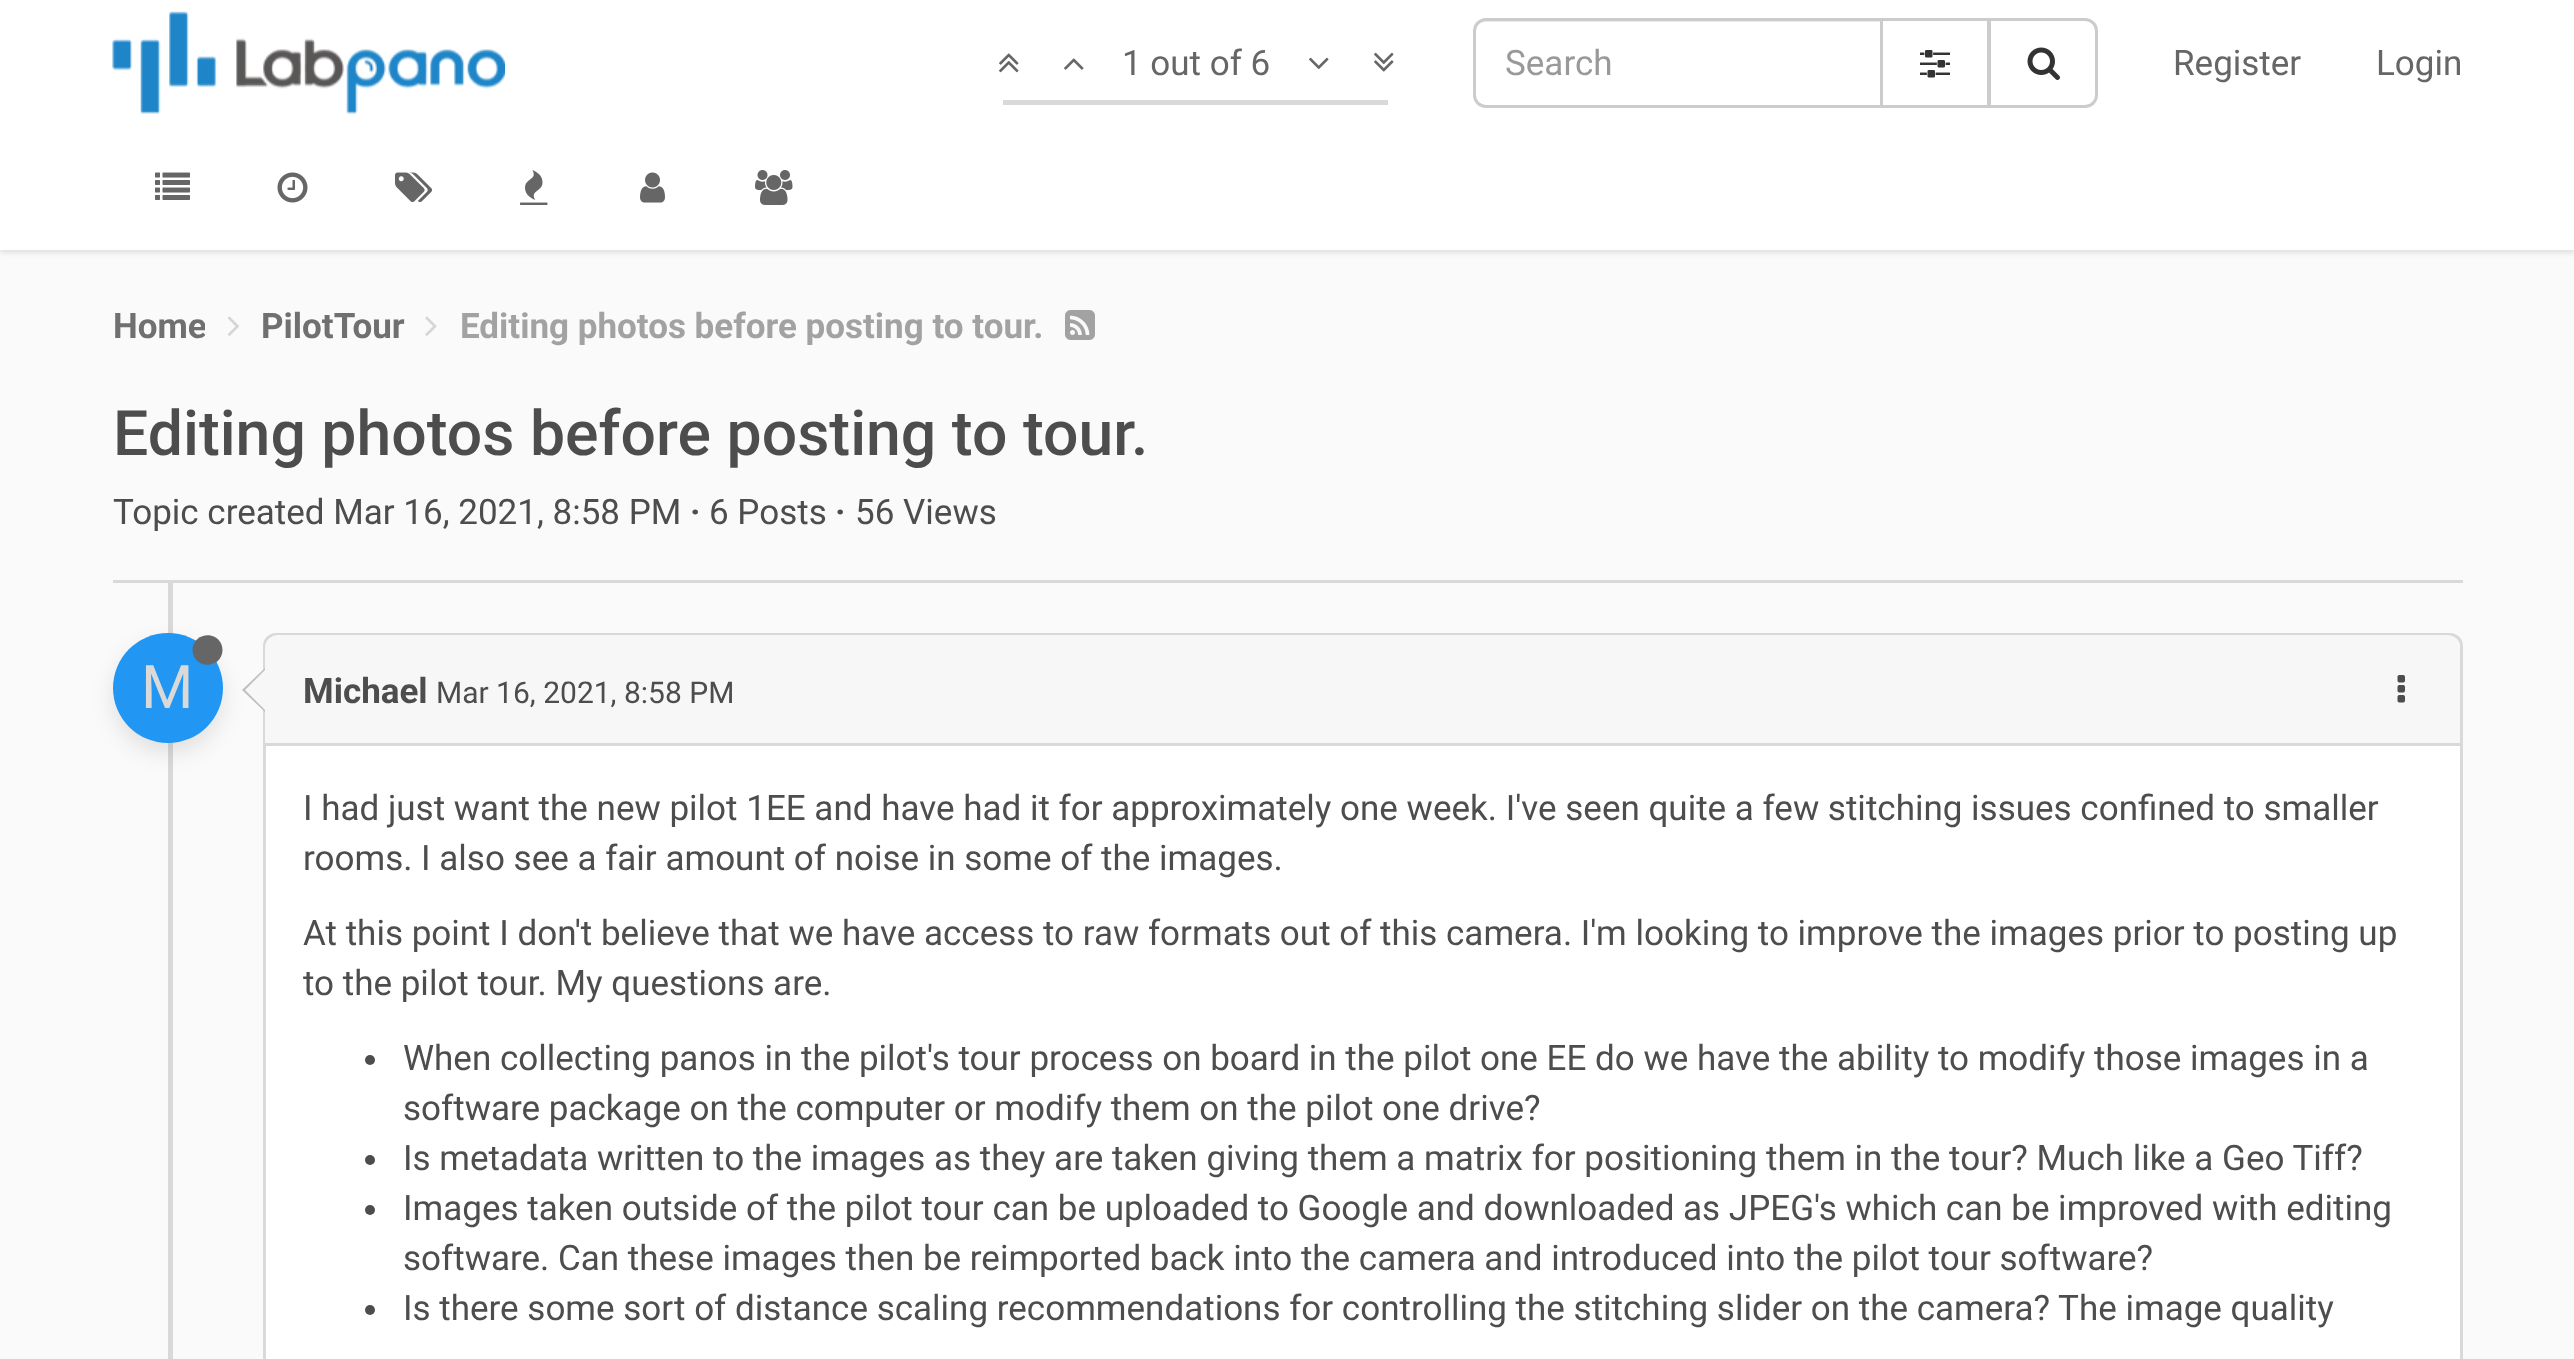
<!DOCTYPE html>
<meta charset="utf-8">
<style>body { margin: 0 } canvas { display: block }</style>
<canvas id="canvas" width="2574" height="1359"></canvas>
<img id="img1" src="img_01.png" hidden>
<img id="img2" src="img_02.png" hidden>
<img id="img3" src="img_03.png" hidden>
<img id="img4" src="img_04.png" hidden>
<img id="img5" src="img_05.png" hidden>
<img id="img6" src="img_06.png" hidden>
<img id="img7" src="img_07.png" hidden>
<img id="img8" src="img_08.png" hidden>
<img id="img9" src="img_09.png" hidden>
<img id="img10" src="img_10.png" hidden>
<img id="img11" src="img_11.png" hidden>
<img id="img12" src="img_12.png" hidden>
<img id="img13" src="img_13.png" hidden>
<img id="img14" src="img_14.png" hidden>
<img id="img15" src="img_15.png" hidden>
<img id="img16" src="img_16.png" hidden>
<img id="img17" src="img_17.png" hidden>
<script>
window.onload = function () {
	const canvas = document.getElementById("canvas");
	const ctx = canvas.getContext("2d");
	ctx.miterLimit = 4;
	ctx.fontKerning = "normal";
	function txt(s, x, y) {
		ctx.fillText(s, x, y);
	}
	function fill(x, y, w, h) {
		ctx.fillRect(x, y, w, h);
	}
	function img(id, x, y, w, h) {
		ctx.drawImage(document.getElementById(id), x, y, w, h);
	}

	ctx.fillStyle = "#FAFAFA";
	fill(0, 0, 2574, 1359);
	ctx.fillStyle = "rgba(0, 0, 0, 0.1)";
	ctx.filter = "blur(2.5px)";
	ctx.beginPath();
	ctx.rect(0, 3, 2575, 250);
	ctx.fill();
	ctx.filter = "none";
	ctx.fillStyle = "#FFFFFF";
	fill(0, 0, 2574, 250);
	img("img1", 112, 11, 393, 103);
	img("img2", 999, 53, 20, 20);
	img("img3", 1064, 58, 20, 12);
	img("img4", 1309, 57, 20, 13);
	img("img5", 1374, 52, 20, 20);
	ctx.fillStyle = "#D9D9D9";
	fill(1003, 100, 385, 5);
	ctx.strokeStyle = "#CCCCCC";
	ctx.lineWidth = 3;
	ctx.strokeRect(1881.5, 19.5, 107, 87);
	ctx.fillStyle = "#FFFFFF";
	ctx.beginPath();
	ctx.roundRect(1473, 18, 410, 90, [13, 0, 0, 13]);
	ctx.fill();
	ctx.fillStyle = "#ECECEC";
	ctx.beginPath();
	ctx.moveTo(1485, 22);
	ctx.lineTo(1880, 22);
	ctx.lineTo(1880, 20);
	ctx.lineTo(1485, 20);
	ctx.bezierCurveTo(1478, 20, 1475, 26, 1475, 32);
	ctx.bezierCurveTo(1475, 27, 1479, 22, 1485, 22);
	ctx.closePath();
	ctx.fill();
	ctx.beginPath();
	ctx.roundRect(1474.5, 19.5, 407, 87, [11.5, 0, 0, 11.5]);
	ctx.stroke();
	img("img6", 1920, 50, 30, 28);
	ctx.fillStyle = "#FFFFFF";
	ctx.beginPath();
	ctx.roundRect(1989.5, 19.5, 107, 87, [0, 11.5, 11.5, 0]);
	ctx.fill();
	ctx.stroke();
	img("img7", 2027, 47, 33, 33);
	img("img8", 155, 172, 35, 28);
	img("img9", 277, 172, 31, 31);
	img("img10", 395, 172, 37, 31);
	img("img11", 520, 170, 28, 35);
	img("img12", 640, 172, 25, 31);
	img("img13", 755, 170, 38, 35);
	img("img14", 227, 316, 12, 20);
	img("img15", 425, 316, 12, 20);
	img("img16", 1065, 310, 30, 30);
	ctx.fillStyle = "#D9D9D9";
	fill(113, 580, 2350, 3);
	fill(168, 583, 5, 776);
	ctx.fillStyle = "rgba(0, 0, 0, 0.1)";
	ctx.filter = "blur(11px)";
	ctx.beginPath();
	ctx.roundRect(113, 643, 110, 110, 55);
	ctx.fill();
	ctx.filter = "none";
	ctx.fillStyle = "#2196F3";
	ctx.beginPath();
	ctx.arc(168, 688, 55, 0, Math.PI * 2);
	ctx.fill();
	ctx.fillStyle = "#666666";
	ctx.beginPath();
	ctx.moveTo(220.5, 642.5);
	ctx.bezierCurveTo(222, 645, 222.5, 648, 222.5, 651);
	ctx.bezierCurveTo(221.5, 665.5, 202, 670, 194.5, 657.5);
	ctx.bezierCurveTo(193, 655, 192.5, 652, 192.5, 649);
	ctx.bezierCurveTo(193.5, 634.5, 213, 630, 220.5, 642.5);
	ctx.closePath();
	ctx.fill();
	ctx.fillStyle = "#FFFFFF";
	ctx.beginPath();
	ctx.roundRect(264.5, 634.5, 2197, 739, 11.5);
	ctx.fill();
	ctx.strokeStyle = "#D9D9D9";
	ctx.stroke();
	ctx.fillStyle = "#BFBFBF";
	ctx.beginPath();
	ctx.moveTo(265, 668);
	ctx.lineTo(265, 712);
	ctx.lineTo(242, 690);
	ctx.closePath();
	ctx.fill();
	ctx.fillStyle = "#F7F7F7";
	ctx.beginPath();
	ctx.moveTo(265, 670);
	ctx.lineTo(265, 710);
	ctx.lineTo(245, 690);
	ctx.closePath();
	ctx.fill();
	ctx.beginPath();
	ctx.roundRect(265, 635, 2195, 110, [13, 13, 0, 0]);
	ctx.fill();
	ctx.fillStyle = "#D9D9D9";
	fill(265, 743, 2195, 3);
	img("img17", 2397, 675, 8, 28);
	ctx.fillStyle = "#4D4D4D";
	ctx.beginPath();
	ctx.arc(370, 1060, 5, 0, Math.PI * 2);
	ctx.fill();
	ctx.beginPath();
	ctx.arc(370, 1160, 5, 0, Math.PI * 2);
	ctx.fill();
	ctx.beginPath();
	ctx.arc(370, 1210, 5, 0, Math.PI * 2);
	ctx.fill();
	ctx.beginPath();
	ctx.arc(370, 1310, 5, 0, Math.PI * 2);
	ctx.fill();
	ctx.font = "35px Roboto";
	ctx.fillStyle = "#666666";
	txt("1 out of 6", 1122, 75);
	ctx.fillStyle = "#999999";
	txt("Search", 1505, 75);
	ctx.fillStyle = "#666666";
	txt("Register", 2173, 75);
	txt("Login", 2376, 75);
	ctx.save();
	ctx.beginPath();
	ctx.rect(113, 300, 92, 50);
	ctx.clip();
	ctx.font = "bold 35px Roboto";
	ctx.fillStyle = "#707070";
	txt("Home", 113, 338);
	ctx.restore();
	ctx.font = "bold 35px Roboto";
	ctx.fillStyle = "#707070";
	txt("PilotTour", 261, 338);
	ctx.fillStyle = "#A2A2A2";
	txt("Editing photos before posting to tour.", 460, 338);
	ctx.font = "500 62.5px Roboto";
	ctx.fillStyle = "#4D4D4D";
	txt("Editing photos before posting to tour.", 113, 455);
	ctx.font = "35px Roboto";
	txt("Topic created Mar 16, 2021, 8:58 PM", 113, 524);
	ctx.font = "bold 35px Roboto";
	txt("·", 690, 524);
	ctx.font = "35px Roboto";
	txt("6 Posts", 709, 524);
	ctx.font = "bold 35px Roboto";
	txt("·", 835, 524);
	ctx.font = "35px Roboto";
	txt("56 Views", 855, 524);
	ctx.font = "60px Roboto";
	ctx.fillStyle = "#D9D9D9";
	txt("M", 141, 708);
	ctx.font = "bold 35px Roboto";
	ctx.fillStyle = "#4D4D4D";
	txt("Michael", 303, 703);
	ctx.font = "30px Roboto";
	txt("Mar 16, 2021, 8:58 PM", 436, 703);
	ctx.font = "35px Roboto";
	txt("I had just want the new pilot 1EE and have had it for approximately one week. I've seen quite a few stitching issues confined to smaller", 303, 820);
	txt("rooms. I also see a fair amount of noise in some of the images.", 303, 870);
	txt("At this point I don't believe that we have access to raw formats out of this camera. I'm looking to improve the images prior to posting up", 303, 945);
	txt("to the pilot tour. My questions are.", 303, 995);
	txt("When collecting panos in the pilot's tour process on board in the pilot one EE do we have the ability to modify those images in a", 403, 1070);
	txt("software package on the computer or modify them on the pilot one drive?", 403, 1120);
	txt("Is metadata written to the images as they are taken giving them a matrix for positioning them in the tour? Much like a Geo Tiff?", 403, 1170);
	txt("Images taken outside of the pilot tour can be uploaded to Google and downloaded as JPEG's which can be improved with editing", 403, 1220);
	txt("software. Can these images then be reimported back into the camera and introduced into the pilot tour software?", 403, 1270);
	txt("Is there some sort of distance scaling recommendations for controlling the stitching slider on the camera? The image quality", 403, 1320);
};
</script>
